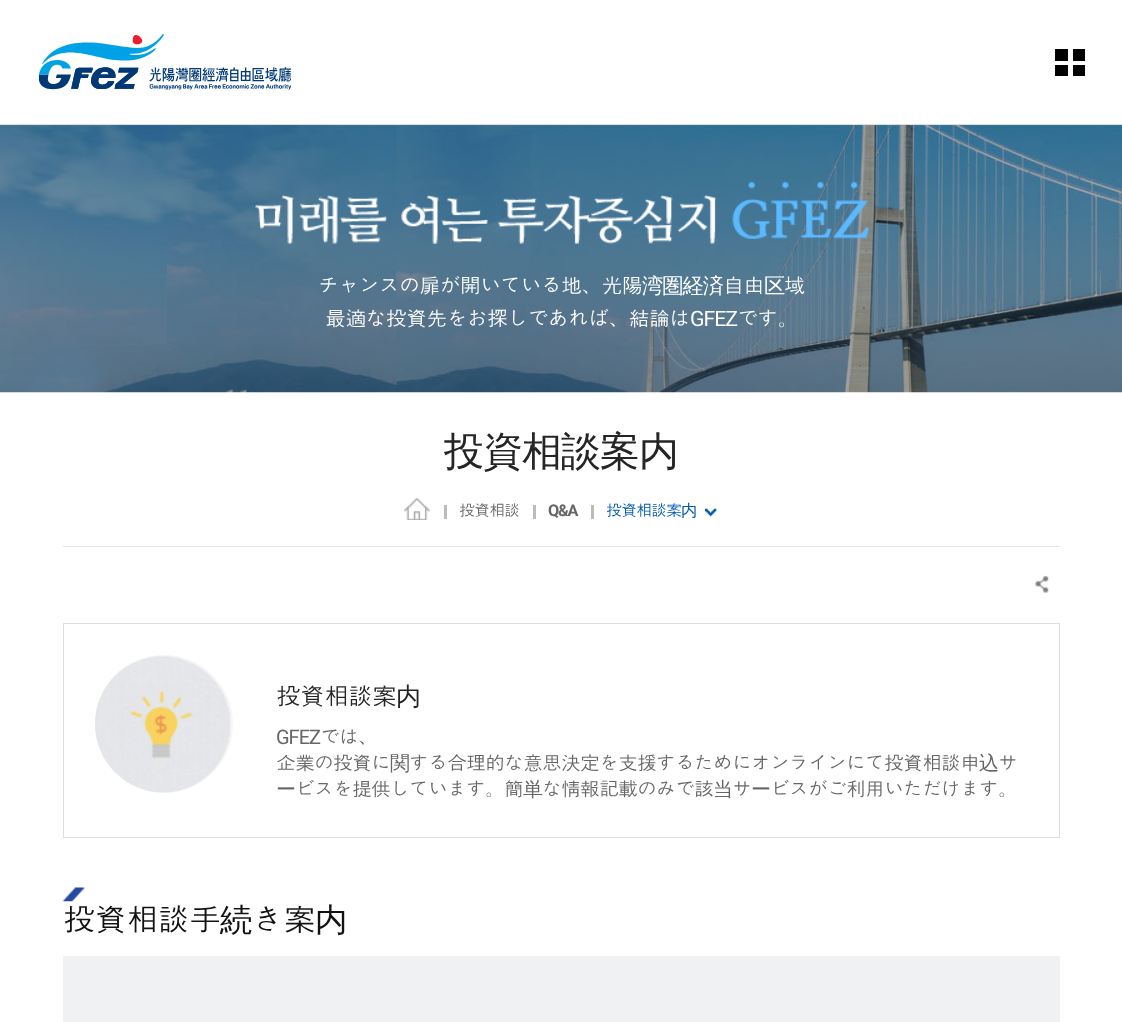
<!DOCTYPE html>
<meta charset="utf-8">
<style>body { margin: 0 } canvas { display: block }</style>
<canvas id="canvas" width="1122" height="1022"></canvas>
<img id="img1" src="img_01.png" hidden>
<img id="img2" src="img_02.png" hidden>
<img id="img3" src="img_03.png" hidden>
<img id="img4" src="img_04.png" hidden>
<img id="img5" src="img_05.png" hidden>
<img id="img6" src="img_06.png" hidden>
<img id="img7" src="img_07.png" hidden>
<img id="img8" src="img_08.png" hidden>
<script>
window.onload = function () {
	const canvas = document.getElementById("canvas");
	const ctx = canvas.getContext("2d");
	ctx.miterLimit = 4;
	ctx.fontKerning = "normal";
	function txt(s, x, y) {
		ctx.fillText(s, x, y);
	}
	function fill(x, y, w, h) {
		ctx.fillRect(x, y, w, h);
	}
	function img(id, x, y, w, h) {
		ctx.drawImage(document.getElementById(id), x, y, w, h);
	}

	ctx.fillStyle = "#FFFFFF";
	fill(0, 0, 1122, 1022);
	ctx.fillStyle = "#DDDDDD";
	fill(0, 124, 1122, 1);
	img("img1", 39, 34, 252, 56);
	ctx.fillStyle = "#000000";
	fill(1055, 49, 13, 12);
	fill(1055, 65, 13, 11);
	fill(1073, 49, 12, 12);
	fill(1073, 65, 12, 11);
	img("img2", 0, 125, 1122, 268);
	img("img3", 255, 181, 614, 63);
	ctx.fillStyle = "#E5E5E5";
	fill(63, 546, 997, 1);
	img("img4", 404, 497, 26, 23);
	ctx.fillStyle = "#BCBCBC";
	fill(444, 505, 3, 14);
	fill(533, 505, 3, 14);
	fill(591, 505, 3, 14);
	img("img5", 705, 508, 12, 9);
	img("img6", 1035, 575, 14, 18);
	ctx.strokeStyle = "#DDDDDD";
	ctx.strokeRect(63.5, 623.5, 996, 214);
	ctx.fillStyle = "#F6F6F6";
	ctx.beginPath();
	ctx.arc(164, 724, 69, 0, Math.PI * 2);
	ctx.fill();
	img("img7", 95, 656, 136, 137);
	img("img8", 62, 887, 23, 15);
	ctx.fillStyle = "#F0F1F3";
	fill(63, 956, 997, 66);
	ctx.letterSpacing = "-1px";
	ctx.font = "21.25px Dotum";
	ctx.fillStyle = "#FFFFFF";
	txt("チャンスの扉が開いている地、光陽", 318, 293);
	ctx.font = "500 21.25px WenQuanYi Zen Hei";
	txt("湾圏経済", 642, 293);
	ctx.font = "21.25px Dotum";
	txt("自由", 723, 293);
	ctx.font = "500 21.25px WenQuanYi Zen Hei";
	txt("区", 764, 293);
	ctx.font = "21.25px Dotum";
	txt("域", 784, 293);
	txt("最適な投資先をお探しであれば、結論は", 325, 326);
	ctx.font = "21.25px Roboto";
	txt("GFEZ", 690, 326);
	ctx.font = "21.25px Dotum";
	txt("です。", 737, 326);
	ctx.font = "500 40px WenQuanYi Zen Hei";
	ctx.fillStyle = "#252525";
	txt("投資相談案内", 444, 465);
	ctx.letterSpacing = "-1.25px";
	ctx.font = "16.25px Dotum";
	ctx.fillStyle = "#666666";
	txt("投資相談", 459, 516);
	ctx.font = "bold 16.25px Roboto";
	txt("Q&A", 548, 516);
	ctx.font = "16.25px Dotum";
	ctx.fillStyle = "#0159B2";
	txt("投資相談案", 606, 516);
	ctx.font = "500 16.25px WenQuanYi Zen Hei";
	txt("内", 681, 516);
	ctx.letterSpacing = "-1px";
	ctx.font = "25px Dotum";
	ctx.fillStyle = "#252525";
	txt("投資相談案", 276, 705);
	ctx.font = "500 25px WenQuanYi Zen Hei";
	txt("内", 396, 705);
	ctx.font = "20px Roboto";
	ctx.fillStyle = "#666666";
	txt("GFEZ", 276, 744);
	ctx.font = "20px Dotum";
	txt("では、", 320, 744);
	txt("企業の投資に", 276, 770);
	ctx.font = "500 20px WenQuanYi Zen Hei";
	txt("関", 390, 770);
	ctx.font = "20px Dotum";
	txt("する合理的な意思決定を支援するためにオンラインにて投資相談申", 409, 770);
	ctx.font = "500 20px WenQuanYi Zen Hei";
	txt("込", 979, 770);
	ctx.font = "20px Dotum";
	txt("サ", 998, 770);
	ctx.font = "500 20px WenQuanYi Zen Hei";
	txt("ー", 276, 796);
	ctx.font = "20px Dotum";
	txt("ビスを提供しています。簡", 295, 796);
	ctx.font = "500 20px WenQuanYi Zen Hei";
	txt("単", 523, 796);
	ctx.font = "20px Dotum";
	txt("な情報記載のみで該", 542, 796);
	ctx.font = "500 20px WenQuanYi Zen Hei";
	txt("当", 713, 796);
	ctx.font = "20px Dotum";
	txt("サ", 732, 796);
	ctx.font = "500 20px WenQuanYi Zen Hei";
	txt("ー", 751, 796);
	ctx.font = "20px Dotum";
	txt("ビスがご利用いただけます。", 770, 796);
	ctx.font = "32.5px Dotum";
	ctx.fillStyle = "#121212";
	txt("投資相談手", 63, 931);
	ctx.font = "500 32.5px WenQuanYi Zen Hei";
	txt("続", 220, 931);
	ctx.font = "32.5px Dotum";
	txt("き案", 252, 931);
	ctx.font = "500 32.5px WenQuanYi Zen Hei";
	txt("内", 315, 931);
};
</script>
